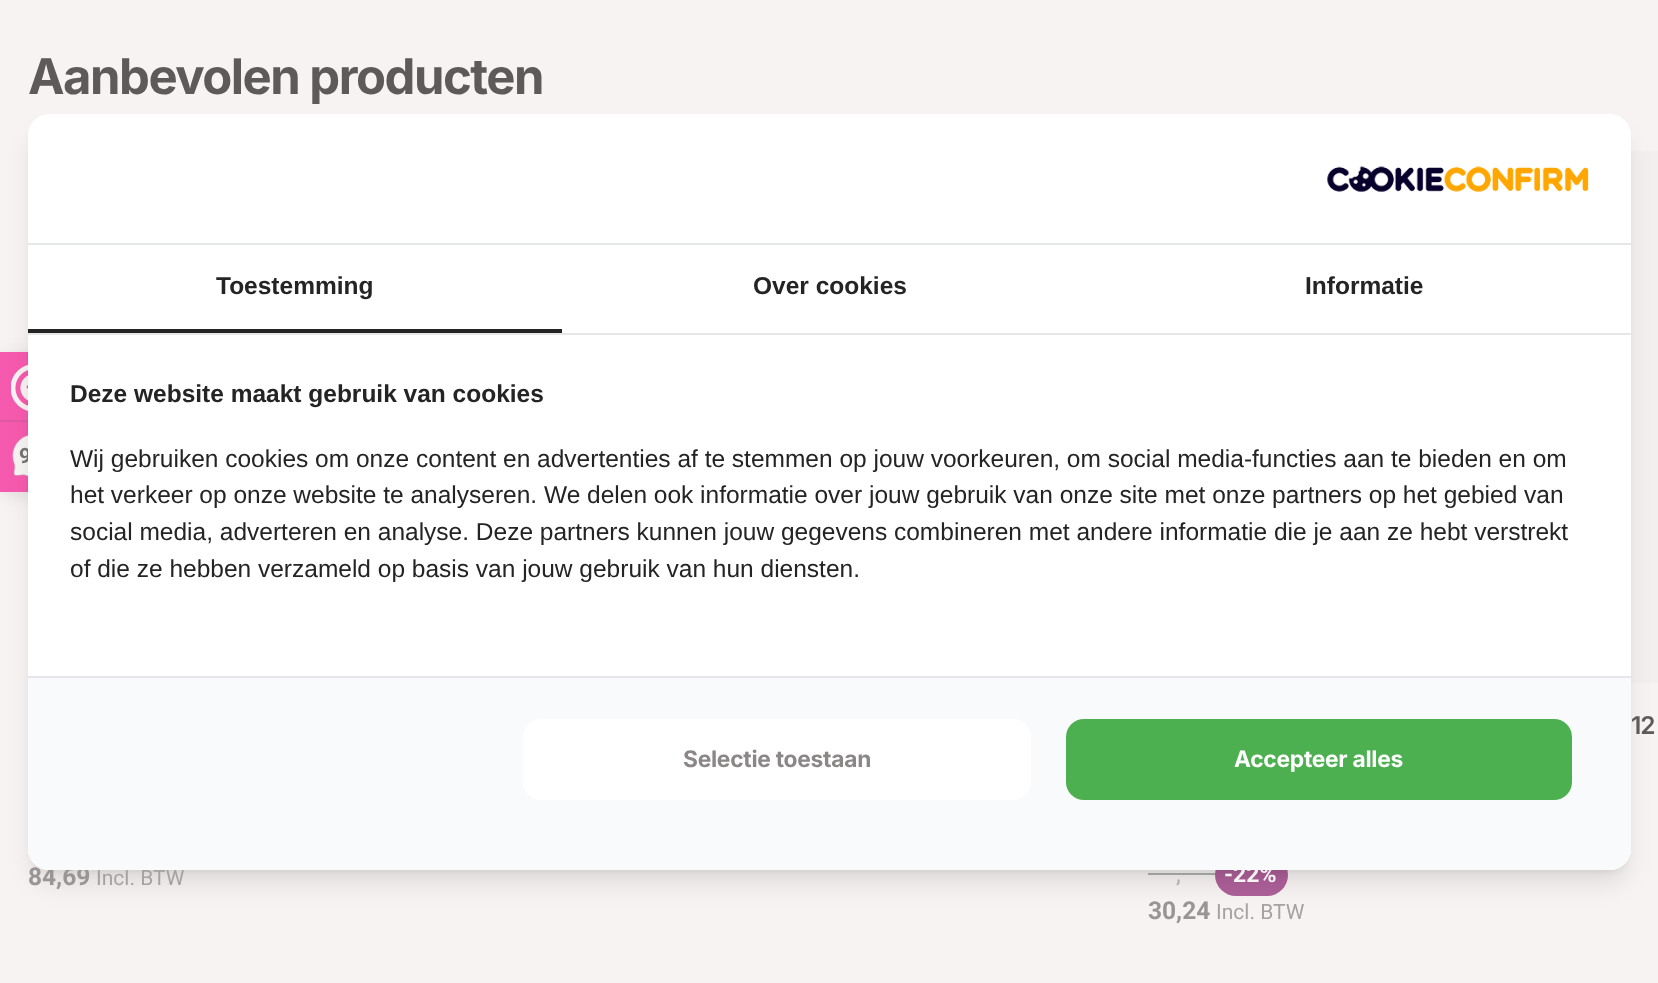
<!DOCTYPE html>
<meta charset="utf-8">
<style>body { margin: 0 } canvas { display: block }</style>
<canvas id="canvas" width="1658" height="983"></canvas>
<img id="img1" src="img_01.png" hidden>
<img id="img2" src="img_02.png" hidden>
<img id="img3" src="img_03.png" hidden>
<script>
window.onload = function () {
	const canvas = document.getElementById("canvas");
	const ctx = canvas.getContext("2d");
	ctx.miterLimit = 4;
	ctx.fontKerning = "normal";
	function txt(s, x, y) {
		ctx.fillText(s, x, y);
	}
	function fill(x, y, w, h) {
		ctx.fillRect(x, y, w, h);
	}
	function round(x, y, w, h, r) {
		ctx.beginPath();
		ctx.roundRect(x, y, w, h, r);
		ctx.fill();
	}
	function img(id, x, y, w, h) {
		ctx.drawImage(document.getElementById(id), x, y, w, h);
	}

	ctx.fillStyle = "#F7F3F3";
	fill(0, 0, 1658, 983);
	ctx.fillStyle = "#F3EFEF";
	fill(1631, 151, 27, 532);
	ctx.fillStyle = "#B1AEAE";
	fill(1148, 873, 67, 2);
	ctx.fillStyle = "#AE6099";
	round(1215, 854, 73, 42, 21);
	ctx.fillStyle = "rgba(94, 90, 90, 0.15)";
	ctx.filter = "blur(9px)";
	ctx.beginPath();
	ctx.roundRect(0, 355, 70, 140, 11);
	ctx.fill();
	ctx.filter = "none";
	ctx.fillStyle = "#F65AAE";
	fill(0, 352, 28, 140);
	img("img1", 11, 365, 17, 46);
	ctx.fillStyle = "#E05AA2";
	fill(0, 420, 28, 2);
	img("img2", 12, 435, 16, 42);
	ctx.fillStyle = "rgba(0, 0, 0, 0.1)";
	ctx.filter = "blur(5px)";
	ctx.beginPath();
	ctx.roundRect(35, 128, 1589, 742, 14);
	ctx.fill();
	ctx.filter = "none";
	ctx.filter = "blur(13px)";
	ctx.beginPath();
	ctx.roundRect(33, 137, 1593, 745, 16);
	ctx.fill();
	ctx.filter = "none";
	ctx.letterSpacing = "-1.5px";
	ctx.font = "bold 49px Inter";
	ctx.fillStyle = "#5E5A5A";
	txt("Aanbevolen producten", 28, 94);
	ctx.letterSpacing = "0px";
	ctx.font = "bold 24.5px Roboto";
	ctx.fillStyle = "#999595";
	txt("84,69", 28, 885);
	ctx.font = "21px Roboto";
	ctx.fillStyle = "#A6A2A2";
	txt("Incl. BTW", 96, 885);
	ctx.letterSpacing = "-1px";
	ctx.font = "600 24.5px Inter";
	ctx.fillStyle = "#5E5A5A";
	txt("12", 1631, 734);
	ctx.letterSpacing = "0px";
	ctx.font = "24.5px Roboto";
	ctx.fillStyle = "#B1AEAE";
	txt(",", 1176, 882);
	ctx.font = "bold 23px Roboto";
	ctx.fillStyle = "#F7F3F3";
	txt("-22%", 1224, 882);
	ctx.font = "bold 24.5px Roboto";
	ctx.fillStyle = "#999595";
	txt("30,24", 1148, 919);
	ctx.font = "21px Roboto";
	ctx.fillStyle = "#A6A2A2";
	txt("Incl. BTW", 1216, 919);
	ctx.font = "bold 21px Roboto";
	ctx.fillStyle = "#757171";
	txt("9", 19, 463);
	ctx.fillStyle = "#FFFFFF";
	round(28, 114, 1603, 756, 21);
	ctx.fillStyle = "#E5E7EB";
	fill(28, 243, 1603, 2);
	img("img3", 1327, 166, 262, 26);
	fill(28, 333, 1603, 2);
	ctx.fillStyle = "#242424";
	fill(28, 329, 534, 4);
	ctx.font = "bold 24.5px Liberation Sans";
	txt("Toestemming", 216, 294);
	txt("Over cookies", 753, 294);
	txt("Informatie", 1305, 294);
	txt("Deze website maakt gebruik van cookies", 70, 402);
	ctx.font = "24.5px Liberation Sans";
	txt("Wij gebruiken cookies om onze content en advertenties af te stemmen op jouw voorkeuren, om social media-functies aan te bieden en om", 70, 467);
	txt("het verkeer op onze website te analyseren. We delen ook informatie over jouw gebruik van onze site met onze partners op het gebied van", 70, 503);
	txt("social media, adverteren en analyse. Deze partners kunnen jouw gegevens combineren met andere informatie die je aan ze hebt verstrekt", 70, 540);
	txt("of die ze hebben verzameld op basis van jouw gebruik van hun diensten.", 70, 577);
	ctx.fillStyle = "#F9FAFB";
	ctx.beginPath();
	ctx.roundRect(28, 676, 1603, 194, [0, 0, 21, 21]);
	ctx.fill();
	ctx.fillStyle = "#E5E7EB";
	fill(28, 676, 1603, 2);
	ctx.fillStyle = "#FFFFFF";
	round(523, 719, 508, 81, 18);
	ctx.letterSpacing = "-0.25px";
	ctx.font = "bold 22.75px Inter";
	ctx.fillStyle = "#8C8787";
	txt("Selectie toestaan", 683, 767);
	ctx.fillStyle = "#4CAF50";
	round(1066, 719, 506, 81, 18);
	ctx.fillStyle = "#FFFFFF";
	txt("Accepteer alles", 1234, 767);
};
</script>
